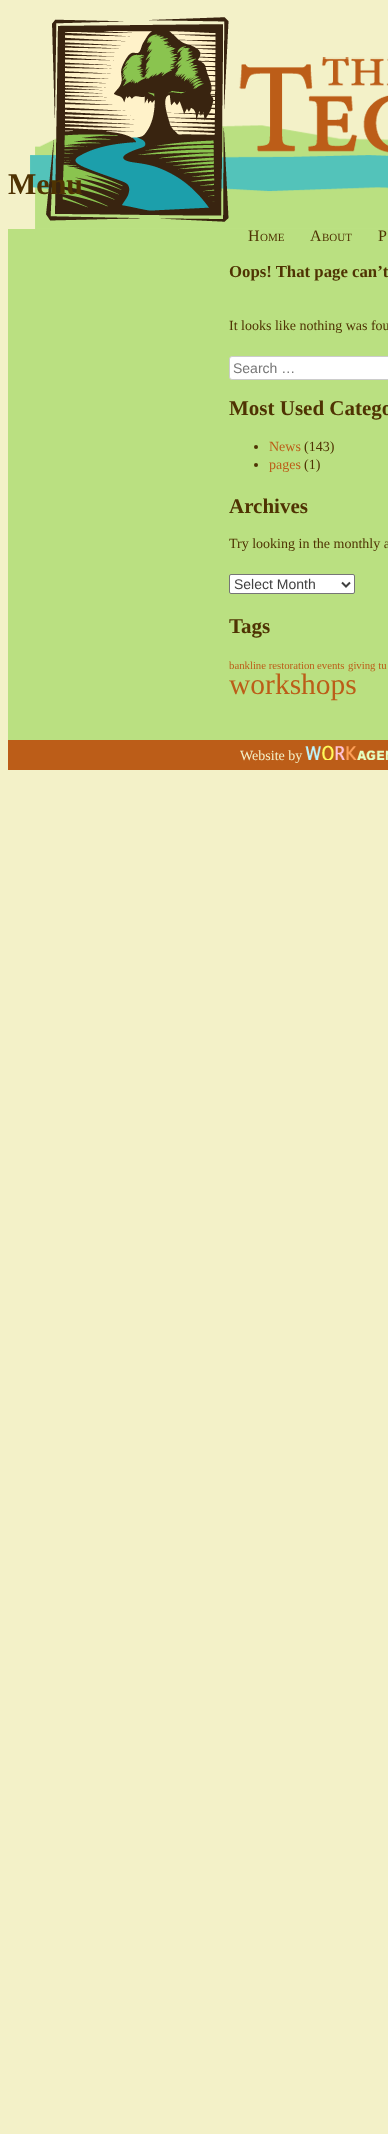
<!DOCTYPE html>
<meta charset="utf-8">
<style>body { margin: 0 } canvas { display: block }</style>
<canvas id="canvas" width="388" height="2134"></canvas>
<img id="img1" src="img_01.png" hidden>
<img id="img2" src="img_02.png" hidden>
<script>
window.onload = function () {
	const canvas = document.getElementById("canvas");
	const ctx = canvas.getContext("2d");
	ctx.miterLimit = 4;
	ctx.fontKerning = "normal";
	function txt(s, x, y) {
		ctx.fillText(s, x, y);
	}
	function fill(x, y, w, h) {
		ctx.fillRect(x, y, w, h);
	}
	function img(id, x, y, w, h) {
		ctx.drawImage(document.getElementById(id), x, y, w, h);
	}

	ctx.fillStyle = "#F3F1C8";
	fill(0, 0, 388, 2134);
	img("img1", 30, 17, 358, 212);
	ctx.fillStyle = "#BAE081";
	fill(8, 229, 380, 511);
	ctx.fillStyle = "#FFFFFF";
	ctx.beginPath();
	ctx.roundRect(229.5, 356.5, 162, 23, 2.5);
	ctx.fill();
	ctx.strokeStyle = "#CCCCCC";
	ctx.stroke();
	ctx.fillStyle = "#4F3303";
	ctx.beginPath();
	ctx.arc(256, 447, 2, 0, Math.PI * 2);
	ctx.fill();
	ctx.beginPath();
	ctx.arc(256, 465, 2, 0, Math.PI * 2);
	ctx.fill();
	ctx.fillStyle = "#FFFFFF";
	ctx.beginPath();
	ctx.roundRect(229.5, 574.5, 125, 19, 1.5);
	ctx.fill();
	ctx.strokeStyle = "#767676";
	ctx.stroke();
	ctx.beginPath();
	ctx.moveTo(342, 582.5);
	ctx.lineTo(346, 586.5);
	ctx.lineTo(350, 582.5);
	ctx.strokeStyle = "#404040";
	ctx.lineWidth = 2;
	ctx.stroke();
	ctx.fillStyle = "#BC5D18";
	fill(8, 740, 380, 30);
	img("img2", 305, 745, 83, 15);
	ctx.font = "bold 30px Liberation Serif";
	ctx.fillStyle = "#4F3303";
	txt("Menu", 8, 194);
	ctx.font = "16px Liberation Serif";
	txt("H", 248, 241);
	ctx.font = "11px Liberation Serif";
	txt("OME", 260, 241);
	ctx.font = "16px Liberation Serif";
	txt("A", 310, 241);
	ctx.font = "11px Liberation Serif";
	txt("BOUT", 322, 241);
	ctx.font = "16px Liberation Serif";
	txt("P", 378, 241);
	ctx.font = "bold 16.75px Liberation Serif";
	txt("Oops! That page can’t", 229, 277);
	ctx.font = "14px Liberation Serif";
	txt("It looks like nothing was fou", 229, 330);
	ctx.font = "14px Liberation Sans";
	ctx.fillStyle = "#757575";
	txt("Search …", 233, 373);
	ctx.font = "bold 21px Liberation Serif";
	ctx.fillStyle = "#4F3303";
	txt("Most Used Catego", 229, 415);
	ctx.font = "14px Liberation Serif";
	ctx.fillStyle = "#BC5D18";
	txt("News", 269, 451);
	ctx.fillStyle = "#4F3303";
	txt("(143)", 304, 451);
	ctx.fillStyle = "#BC5D18";
	txt("pages", 269, 469);
	ctx.fillStyle = "#4F3303";
	txt("(1)", 304, 469);
	ctx.font = "bold 21px Liberation Serif";
	txt("Archives", 229, 513);
	ctx.font = "14px Liberation Serif";
	txt("Try looking in the monthly a", 229, 548);
	ctx.font = "14px Liberation Sans";
	ctx.fillStyle = "#404040";
	txt("Select Month", 234, 589);
	ctx.font = "bold 21px Liberation Serif";
	ctx.fillStyle = "#4F3303";
	txt("Tags", 229, 633);
	ctx.font = "10.75px Liberation Serif";
	ctx.fillStyle = "#BC5D18";
	txt("bankline restoration", 229, 669);
	txt("events", 317, 669);
	txt("giving tu", 348, 669);
	ctx.font = "29.5px Liberation Serif";
	txt("workshops", 229, 694);
	ctx.font = "14px Liberation Serif";
	ctx.fillStyle = "#F3F1C8";
	txt("Website by", 240, 760);
};
</script>
